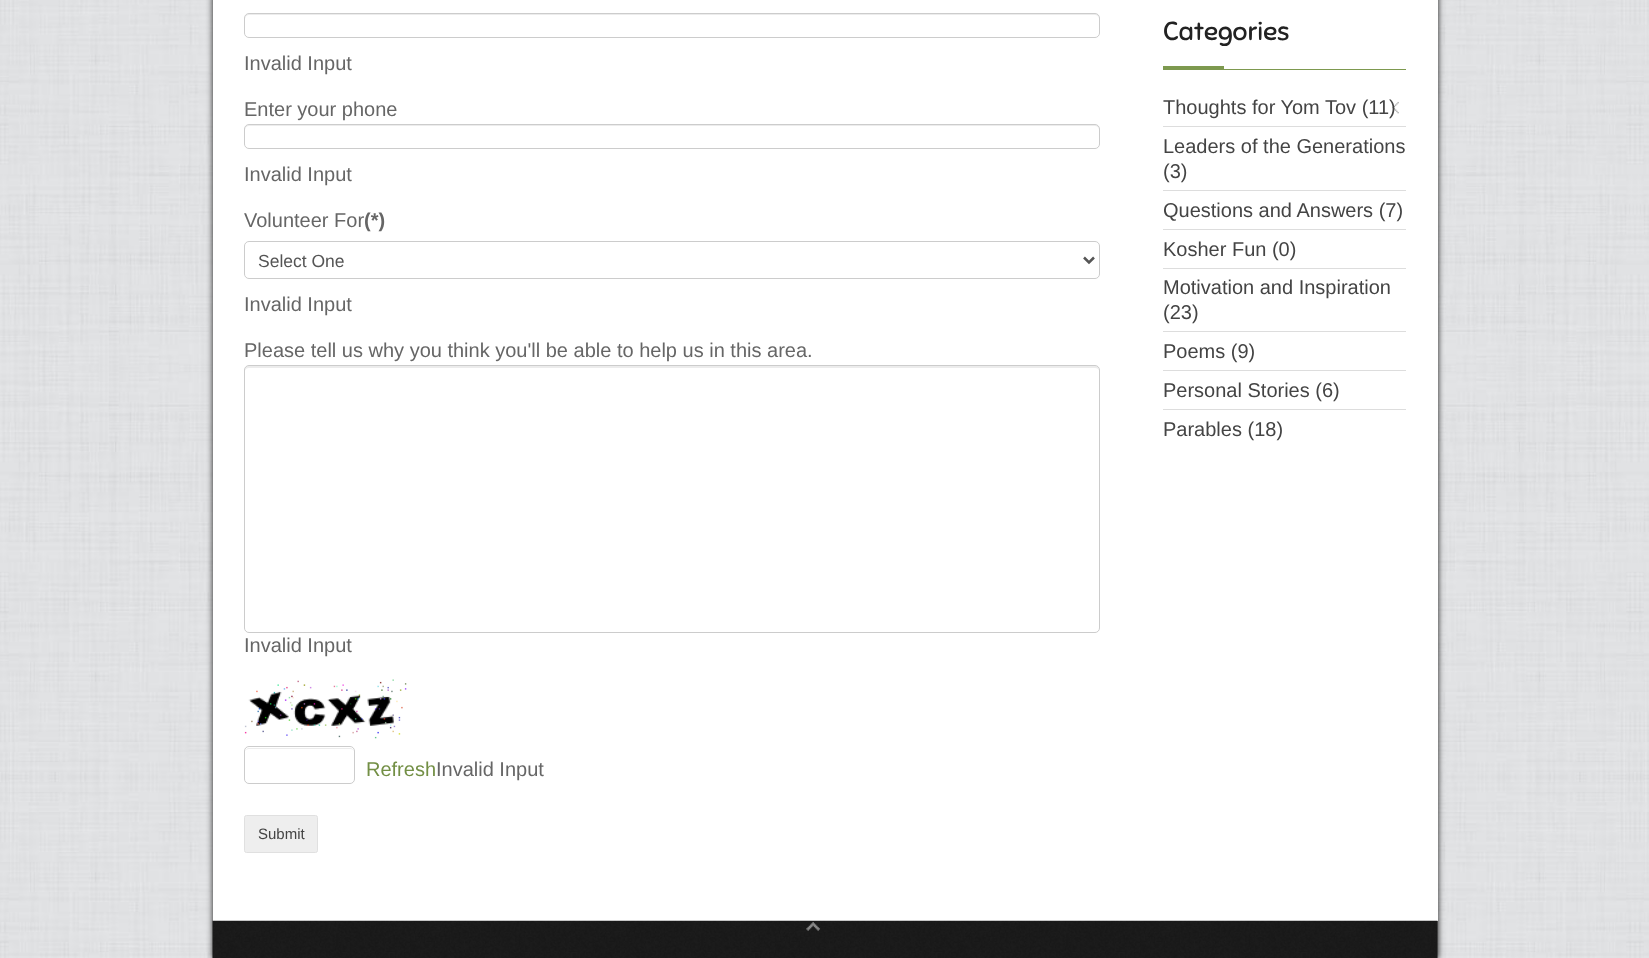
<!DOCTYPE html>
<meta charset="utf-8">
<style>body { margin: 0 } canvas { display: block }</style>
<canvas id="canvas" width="1649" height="958"></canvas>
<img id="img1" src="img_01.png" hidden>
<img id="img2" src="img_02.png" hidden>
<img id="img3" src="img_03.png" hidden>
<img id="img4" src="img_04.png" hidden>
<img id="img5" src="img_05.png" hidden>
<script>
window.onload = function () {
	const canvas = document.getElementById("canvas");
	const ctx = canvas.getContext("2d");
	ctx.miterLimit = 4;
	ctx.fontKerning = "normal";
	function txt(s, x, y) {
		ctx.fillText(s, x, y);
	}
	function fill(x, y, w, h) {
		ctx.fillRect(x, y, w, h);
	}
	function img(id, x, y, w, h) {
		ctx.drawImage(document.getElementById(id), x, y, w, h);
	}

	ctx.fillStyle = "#FFFFFF";
	fill(0, 0, 1649, 958);
	img("img1", 0, 0, 1649, 958);
	ctx.fillStyle = "#141414";
	ctx.filter = "blur(3px)";
	ctx.beginPath();
	ctx.rect(213, -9, 1225, 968);
	ctx.fill();
	ctx.filter = "none";
	ctx.fillStyle = "#FFFFFF";
	fill(213, 0, 1225, 921);
	ctx.fillStyle = "#ECECEC";
	ctx.beginPath();
	ctx.moveTo(249, 15);
	ctx.lineTo(1095, 15);
	ctx.bezierCurveTo(1097, 15, 1099, 17, 1099, 19);
	ctx.bezierCurveTo(1099, 16, 1098, 14, 1095, 14);
	ctx.lineTo(249, 14);
	ctx.bezierCurveTo(246, 14, 245, 16, 245, 19);
	ctx.bezierCurveTo(245, 17, 247, 15, 249, 15);
	ctx.closePath();
	ctx.fill();
	ctx.beginPath();
	ctx.roundRect(244.5, 13.5, 855, 24, 4.5);
	ctx.strokeStyle = "#CCCCCC";
	ctx.stroke();
	ctx.beginPath();
	ctx.moveTo(249, 126);
	ctx.lineTo(1095, 126);
	ctx.bezierCurveTo(1097, 126, 1099, 128, 1099, 130);
	ctx.bezierCurveTo(1099, 127, 1098, 125, 1095, 125);
	ctx.lineTo(249, 125);
	ctx.bezierCurveTo(246, 125, 245, 127, 245, 130);
	ctx.bezierCurveTo(245, 128, 247, 126, 249, 126);
	ctx.closePath();
	ctx.fill();
	ctx.beginPath();
	ctx.roundRect(244.5, 124.5, 855, 24, 4.5);
	ctx.stroke();
	ctx.beginPath();
	ctx.roundRect(244.5, 241.5, 855, 37, 4.5);
	ctx.stroke();
	ctx.beginPath();
	ctx.moveTo(1084, 257.5);
	ctx.lineTo(1089, 262.5);
	ctx.lineTo(1094, 257.5);
	ctx.strokeStyle = "#555555";
	ctx.lineWidth = 2.5;
	ctx.stroke();
	ctx.beginPath();
	ctx.moveTo(249, 368);
	ctx.lineTo(1095, 368);
	ctx.bezierCurveTo(1097, 368, 1099, 369, 1099, 371);
	ctx.bezierCurveTo(1099, 368, 1098, 366, 1095, 366);
	ctx.lineTo(249, 366);
	ctx.bezierCurveTo(246, 366, 245, 368, 245, 371);
	ctx.bezierCurveTo(245, 369, 247, 368, 249, 368);
	ctx.closePath();
	ctx.fill();
	ctx.beginPath();
	ctx.roundRect(244.5, 365.5, 855, 267, 4.5);
	ctx.strokeStyle = "#CCCCCC";
	ctx.lineWidth = 1;
	ctx.stroke();
	img("img2", 244, 679, 163, 60);
	ctx.beginPath();
	ctx.moveTo(249, 749);
	ctx.lineTo(350, 749);
	ctx.bezierCurveTo(352, 749, 354, 750, 354, 752);
	ctx.bezierCurveTo(354, 750, 352, 748, 350, 748);
	ctx.lineTo(249, 748);
	ctx.bezierCurveTo(247, 748, 245, 750, 245, 752);
	ctx.bezierCurveTo(245, 750, 247, 749, 249, 749);
	ctx.closePath();
	ctx.fill();
	ctx.beginPath();
	ctx.roundRect(244.5, 746.5, 110, 37, 4.5);
	ctx.stroke();
	ctx.fillStyle = "#EEEEEE";
	ctx.beginPath();
	ctx.roundRect(244.5, 815.5, 73, 37, 2);
	ctx.fill();
	ctx.strokeStyle = "#E0E0E0";
	ctx.stroke();
	ctx.fillStyle = "#7D994F";
	fill(1163, 69, 243, 1);
	fill(1163, 66, 61, 3);
	img("img3", 1392, 101, 7, 13);
	ctx.fillStyle = "#DDDDDD";
	fill(1163, 126, 243, 1);
	fill(1163, 190, 243, 1);
	fill(1163, 229, 243, 1);
	fill(1163, 268, 243, 1);
	fill(1163, 331, 243, 1);
	fill(1163, 370, 243, 1);
	fill(1163, 409, 243, 1);
	img("img4", 212, 920, 1226, 38);
	img("img5", 806, 922, 14, 9);
	ctx.font = "20px Liberation Sans";
	ctx.fillStyle = "#666666";
	txt("Invalid Input", 244, 70);
	txt("Enter your phone", 244, 116);
	txt("Invalid Input", 244, 181);
	txt("Volunteer For", 244, 227);
	ctx.font = "bold 20px Liberation Sans";
	txt("(*)", 364, 227);
	ctx.font = "17.5px Liberation Sans";
	ctx.fillStyle = "#555555";
	txt("Select One", 258, 267);
	ctx.font = "20px Liberation Sans";
	ctx.fillStyle = "#666666";
	txt("Invalid Input", 244, 311);
	txt("Please tell us why you think you'll be able to help us in this area.", 244, 357);
	txt("Invalid Input", 244, 652);
	ctx.fillStyle = "#738F45";
	txt("Refresh", 366, 776);
	ctx.fillStyle = "#666666";
	txt("Invalid Input", 436, 776);
	ctx.font = "15px Liberation Sans";
	ctx.fillStyle = "#444444";
	txt("Submit", 258, 839);
	ctx.font = "26.25px Sniglet";
	ctx.fillStyle = "#222222";
	txt("Categories", 1163, 40);
	ctx.font = "20px Liberation Sans";
	ctx.fillStyle = "#444444";
	txt("Thoughts for Yom Tov (11)", 1163, 114);
	txt("Leaders of the Generations", 1163, 153);
	txt("(3)", 1163, 178);
	txt("Questions and Answers (7)", 1163, 217);
	txt("Kosher Fun (0)", 1163, 256);
	txt("Motivation and Inspiration", 1163, 294);
	txt("(23)", 1163, 319);
	txt("Poems (9)", 1163, 358);
	txt("Personal Stories (6)", 1163, 397);
	txt("Parables (18)", 1163, 436);
};
</script>
